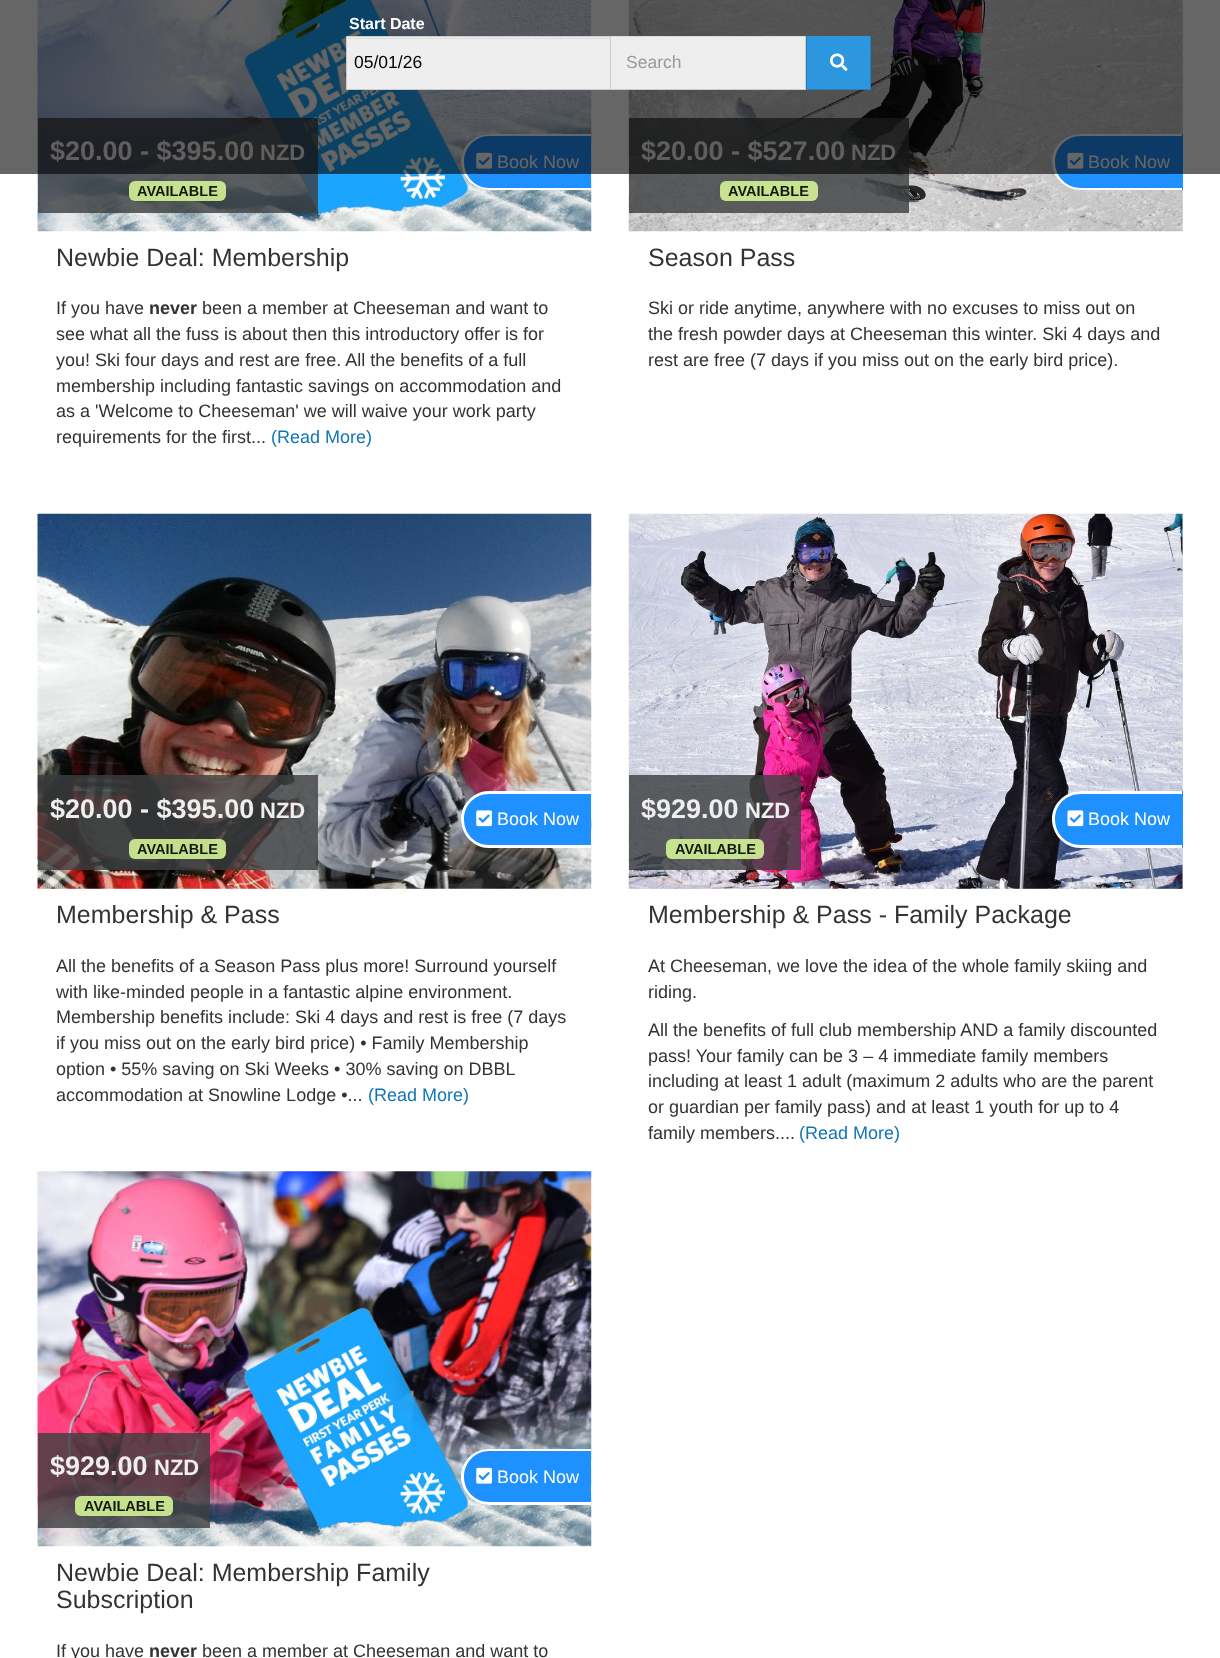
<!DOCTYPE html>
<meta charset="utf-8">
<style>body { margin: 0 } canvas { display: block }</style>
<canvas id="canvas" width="1220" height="1658"></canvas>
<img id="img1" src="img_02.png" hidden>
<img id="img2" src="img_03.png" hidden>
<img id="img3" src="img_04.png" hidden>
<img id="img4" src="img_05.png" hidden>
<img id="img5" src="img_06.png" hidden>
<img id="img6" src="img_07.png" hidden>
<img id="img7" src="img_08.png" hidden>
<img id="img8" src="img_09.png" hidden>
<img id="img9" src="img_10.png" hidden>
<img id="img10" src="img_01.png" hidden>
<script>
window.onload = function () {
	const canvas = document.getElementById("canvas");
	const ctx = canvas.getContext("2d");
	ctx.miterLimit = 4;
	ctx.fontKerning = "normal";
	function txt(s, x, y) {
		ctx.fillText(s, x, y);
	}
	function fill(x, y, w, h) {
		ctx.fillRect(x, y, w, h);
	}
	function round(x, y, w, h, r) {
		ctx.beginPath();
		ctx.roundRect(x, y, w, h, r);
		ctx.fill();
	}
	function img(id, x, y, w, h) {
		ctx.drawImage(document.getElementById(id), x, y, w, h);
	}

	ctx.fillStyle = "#FFFFFF";
	fill(0, 0, 1220, 1658);
	img("img1", 37, 0, 555, 232);
	ctx.fillStyle = "rgba(60, 63, 64, 0.81)";
	fill(38, 118, 280, 95);
	ctx.fillStyle = "rgba(212, 242, 150, 0.9)";
	round(129, 181, 97, 20, 6);
	ctx.fillStyle = "#1E90FF";
	ctx.beginPath();
	ctx.roundRect(461, 134, 130, 56, [28, 0, 0, 28]);
	ctx.fill();
	ctx.fillStyle = "#FFFFFF";
	ctx.beginPath();
	ctx.moveTo(489, 134);
	ctx.lineTo(591, 134);
	ctx.lineTo(591, 190);
	ctx.lineTo(489, 190);
	ctx.bezierCurveTo(474, 190, 461, 177, 461, 162);
	ctx.bezierCurveTo(461, 146, 474, 134, 489, 134);
	ctx.closePath();
	ctx.moveTo(489, 136);
	ctx.lineTo(591, 136);
	ctx.lineTo(591, 188);
	ctx.lineTo(489, 188);
	ctx.bezierCurveTo(475, 188, 464, 176, 464, 162);
	ctx.bezierCurveTo(464, 148, 475, 136, 489, 136);
	ctx.closePath();
	ctx.fill("evenodd");
	img("img2", 476, 152, 16, 17);
	ctx.fillStyle = "#DDDDDD";
	fill(1182, 0, 1, 231);
	img("img3", 628, 0, 555, 232);
	ctx.fillStyle = "rgba(60, 63, 64, 0.81)";
	fill(629, 118, 280, 95);
	ctx.fillStyle = "rgba(212, 242, 150, 0.9)";
	round(720, 181, 98, 20, 6);
	ctx.fillStyle = "#1E90FF";
	ctx.beginPath();
	ctx.roundRect(1053, 134, 130, 56, [28, 0, 0, 28]);
	ctx.fill();
	ctx.fillStyle = "#FFFFFF";
	ctx.beginPath();
	ctx.moveTo(1081, 134);
	ctx.lineTo(1182, 134);
	ctx.lineTo(1182, 190);
	ctx.lineTo(1081, 190);
	ctx.bezierCurveTo(1065, 190, 1052, 177, 1052, 162);
	ctx.bezierCurveTo(1052, 146, 1065, 134, 1081, 134);
	ctx.closePath();
	ctx.moveTo(1081, 136);
	ctx.lineTo(1182, 136);
	ctx.lineTo(1182, 188);
	ctx.lineTo(1081, 188);
	ctx.bezierCurveTo(1066, 188, 1055, 176, 1055, 162);
	ctx.bezierCurveTo(1055, 148, 1066, 136, 1081, 136);
	ctx.closePath();
	ctx.fill("evenodd");
	img("img4", 1067, 152, 17, 17);
	img("img5", 37, 513, 555, 376);
	ctx.fillStyle = "rgba(60, 63, 64, 0.81)";
	fill(38, 775, 280, 95);
	ctx.fillStyle = "rgba(212, 242, 150, 0.9)";
	round(129, 839, 97, 20, 6);
	ctx.fillStyle = "#1E90FF";
	ctx.beginPath();
	ctx.roundRect(461, 791, 130, 57, [28.5, 0, 0, 28.5]);
	ctx.fill();
	ctx.fillStyle = "#FFFFFF";
	ctx.beginPath();
	ctx.moveTo(489, 791);
	ctx.lineTo(591, 791);
	ctx.lineTo(591, 848);
	ctx.lineTo(489, 848);
	ctx.bezierCurveTo(474, 848, 461, 835, 461, 819);
	ctx.bezierCurveTo(461, 804, 474, 791, 489, 791);
	ctx.closePath();
	ctx.moveTo(489, 794);
	ctx.lineTo(591, 794);
	ctx.lineTo(591, 845);
	ctx.lineTo(489, 845);
	ctx.bezierCurveTo(475, 845, 464, 834, 464, 819);
	ctx.bezierCurveTo(464, 805, 475, 794, 489, 794);
	ctx.closePath();
	ctx.fill("evenodd");
	img("img6", 476, 810, 16, 17);
	ctx.fillStyle = "#DDDDDD";
	fill(629, 514, 554, 375);
	img("img7", 628, 513, 555, 376);
	ctx.fillStyle = "rgba(60, 63, 64, 0.81)";
	fill(629, 775, 172, 95);
	ctx.fillStyle = "rgba(212, 242, 150, 0.9)";
	round(666, 839, 98, 20, 6);
	ctx.fillStyle = "#1E90FF";
	ctx.beginPath();
	ctx.roundRect(1053, 791, 130, 57, [28.5, 0, 0, 28.5]);
	ctx.fill();
	ctx.fillStyle = "#FFFFFF";
	ctx.beginPath();
	ctx.moveTo(1081, 791);
	ctx.lineTo(1182, 791);
	ctx.lineTo(1182, 848);
	ctx.lineTo(1081, 848);
	ctx.bezierCurveTo(1065, 848, 1052, 835, 1052, 819);
	ctx.bezierCurveTo(1052, 804, 1065, 791, 1081, 791);
	ctx.closePath();
	ctx.moveTo(1081, 794);
	ctx.lineTo(1182, 794);
	ctx.lineTo(1182, 845);
	ctx.lineTo(1081, 845);
	ctx.bezierCurveTo(1066, 845, 1055, 834, 1055, 819);
	ctx.bezierCurveTo(1055, 805, 1066, 794, 1081, 794);
	ctx.closePath();
	ctx.fill("evenodd");
	img("img8", 1067, 810, 17, 17);
	img("img9", 37, 1171, 555, 376);
	ctx.fillStyle = "rgba(60, 63, 64, 0.81)";
	fill(38, 1433, 172, 95);
	ctx.fillStyle = "rgba(212, 242, 150, 0.9)";
	round(75, 1496, 98, 20, 6);
	ctx.fillStyle = "#1E90FF";
	ctx.beginPath();
	ctx.roundRect(461, 1449, 130, 56, [28, 0, 0, 28]);
	ctx.fill();
	ctx.fillStyle = "#FFFFFF";
	ctx.beginPath();
	ctx.moveTo(489, 1449);
	ctx.lineTo(591, 1449);
	ctx.lineTo(591, 1505);
	ctx.lineTo(489, 1505);
	ctx.bezierCurveTo(474, 1505, 461, 1492, 461, 1477);
	ctx.bezierCurveTo(461, 1461, 474, 1449, 489, 1449);
	ctx.closePath();
	ctx.moveTo(489, 1451);
	ctx.lineTo(591, 1451);
	ctx.lineTo(591, 1502);
	ctx.lineTo(489, 1502);
	ctx.bezierCurveTo(475, 1502, 464, 1491, 464, 1477);
	ctx.bezierCurveTo(464, 1463, 475, 1451, 489, 1451);
	ctx.closePath();
	ctx.fill("evenodd");
	img("img2", 476, 1467, 16, 17);
	ctx.font = "bold 27px Liberation Sans";
	ctx.fillStyle = "#EEEEEF";
	txt("$20.00 - $395.00", 50, 160);
	ctx.font = "bold 22px Liberation Sans";
	txt("NZD", 260, 160);
	ctx.font = "bold 14.5px Liberation Sans";
	ctx.fillStyle = "#14170E";
	txt("AVAILABLE", 137, 196);
	ctx.font = "18px Liberation Sans";
	ctx.fillStyle = "#FFFFFF";
	txt("Book Now", 497, 168);
	ctx.font = "25px Liberation Sans";
	ctx.fillStyle = "#333333";
	txt("Newbie Deal: Membership", 56, 266);
	ctx.font = "18px Liberation Sans";
	txt("If you have", 56, 314);
	ctx.font = "bold 18px Liberation Sans";
	txt("never", 149, 314);
	ctx.font = "18px Liberation Sans";
	txt("been a member at Cheeseman and want to", 202, 314);
	txt("see what all the fuss is about then this introductory offer is for", 56, 340);
	txt("you! Ski four days and rest are free. All the benefits of a full", 56, 366);
	txt("membership including fantastic savings on accommodation and", 56, 392);
	txt("as a 'Welcome to Cheeseman' we will waive your work party", 56, 417);
	txt("requirements for the first...", 56, 443);
	ctx.fillStyle = "#1275B8";
	txt("(Read More)", 271, 443);
	ctx.font = "bold 27px Liberation Sans";
	ctx.fillStyle = "#EEEEEF";
	txt("$20.00 - $527.00", 641, 160);
	ctx.font = "bold 22px Liberation Sans";
	txt("NZD", 851, 160);
	ctx.font = "bold 14.5px Liberation Sans";
	ctx.fillStyle = "#14170E";
	txt("AVAILABLE", 728, 196);
	ctx.font = "18px Liberation Sans";
	ctx.fillStyle = "#FFFFFF";
	txt("Book Now", 1088, 168);
	ctx.fillStyle = "rgba(0, 0, 0, 0.6)";
	fill(0, 0, 1220, 174);
	ctx.fillStyle = "#2C97DE";
	fill(807, 36, 63, 53);
	img("img10", 830, 53, 18, 18);
	ctx.fillStyle = "#227FBB";
	fill(870, 36, 1, 54);
	fill(806, 89, 65, 1);
	fill(806, 36, 1, 54);
	ctx.fillStyle = "#EEEEEE";
	fill(611, 37, 194, 52);
	ctx.font = "17.5px Liberation Sans";
	ctx.fillStyle = "#999999";
	txt("Search", 626, 68);
	ctx.fillStyle = "#CCCCCC";
	fill(805, 36, 1, 54);
	fill(610, 89, 196, 1);
	fill(610, 36, 1, 54);
	ctx.fillStyle = "#DCDCDC";
	fill(611, 36, 194, 1);
	ctx.fillStyle = "#EEEEEE";
	fill(347, 37, 263, 52);
	ctx.fillStyle = "#000000";
	txt("05/01/26", 354, 68);
	ctx.fillStyle = "#CCCCCC";
	fill(346, 89, 264, 1);
	fill(346, 36, 264, 1);
	fill(346, 36, 1, 54);
	ctx.fillStyle = "#DCDCDC";
	fill(348, 38, 262, 1);
	ctx.font = "bold 16px Liberation Sans";
	ctx.fillStyle = "#FFFFFF";
	txt("Start Date", 349, 29);
	ctx.font = "25px Liberation Sans";
	ctx.fillStyle = "#333333";
	txt("Season Pass", 648, 266);
	ctx.font = "18px Liberation Sans";
	txt("Ski or ride anytime, anywhere with no excuses to miss out on", 648, 314);
	txt("the fresh powder days at Cheeseman this winter. Ski 4 days and", 648, 340);
	txt("rest are free (7 days if you miss out on the early bird price).", 648, 366);
	ctx.font = "bold 27px Liberation Sans";
	ctx.fillStyle = "#EEEEEF";
	txt("$20.00 - $395.00", 50, 818);
	ctx.font = "bold 22px Liberation Sans";
	txt("NZD", 260, 818);
	ctx.font = "bold 14.5px Liberation Sans";
	ctx.fillStyle = "#14170E";
	txt("AVAILABLE", 137, 854);
	ctx.font = "18px Liberation Sans";
	ctx.fillStyle = "#FFFFFF";
	txt("Book Now", 497, 825);
	ctx.font = "25px Liberation Sans";
	ctx.fillStyle = "#333333";
	txt("Membership & Pass", 56, 923);
	ctx.font = "18px Liberation Sans";
	txt("All the benefits of a Season Pass plus more! Surround yourself", 56, 972);
	txt("with like-minded people in a fantastic alpine environment.", 56, 998);
	txt("Membership benefits include: Ski 4 days and rest is free (7 days", 56, 1023);
	txt("if you miss out on the early bird price) • Family Membership", 56, 1049);
	txt("option • 55% saving on Ski Weeks • 30% saving on DBBL", 56, 1075);
	txt("accommodation at Snowline Lodge •...", 56, 1101);
	ctx.fillStyle = "#1275B8";
	txt("(Read More)", 368, 1101);
	ctx.font = "bold 27px Liberation Sans";
	ctx.fillStyle = "#EEEEEF";
	txt("$929.00", 641, 818);
	ctx.font = "bold 22px Liberation Sans";
	txt("NZD", 745, 818);
	ctx.font = "bold 14.5px Liberation Sans";
	ctx.fillStyle = "#14170E";
	txt("AVAILABLE", 675, 854);
	ctx.font = "18px Liberation Sans";
	ctx.fillStyle = "#FFFFFF";
	txt("Book Now", 1088, 825);
	ctx.font = "25px Liberation Sans";
	ctx.fillStyle = "#333333";
	txt("Membership & Pass - Family Package", 648, 923);
	ctx.font = "18px Liberation Sans";
	txt("At Cheeseman, we love the idea of the whole family skiing and", 648, 972);
	txt("riding.", 648, 998);
	txt("All the benefits of full club membership AND a family discounted", 648, 1036);
	txt("pass! Your family can be 3 – 4 immediate family members", 648, 1062);
	txt("including at least 1 adult (maximum 2 adults who are the parent", 648, 1087);
	txt("or guardian per family pass) and at least 1 youth for up to 4", 648, 1113);
	txt("family members....", 648, 1139);
	ctx.fillStyle = "#1275B8";
	txt("(Read More)", 799, 1139);
	ctx.font = "bold 27px Liberation Sans";
	ctx.fillStyle = "#EEEEEF";
	txt("$929.00", 50, 1475);
	ctx.font = "bold 22px Liberation Sans";
	txt("NZD", 154, 1475);
	ctx.font = "bold 14.5px Liberation Sans";
	ctx.fillStyle = "#14170E";
	txt("AVAILABLE", 84, 1511);
	ctx.font = "18px Liberation Sans";
	ctx.fillStyle = "#FFFFFF";
	txt("Book Now", 497, 1483);
	ctx.font = "25px Liberation Sans";
	ctx.fillStyle = "#333333";
	txt("Newbie Deal: Membership Family", 56, 1581);
	txt("Subscription", 56, 1608);
	ctx.font = "18px Liberation Sans";
	txt("If you have", 56, 1657);
	ctx.font = "bold 18px Liberation Sans";
	txt("never", 149, 1657);
	ctx.font = "18px Liberation Sans";
	txt("been a member at Cheeseman and want to", 202, 1657);
};
</script>
